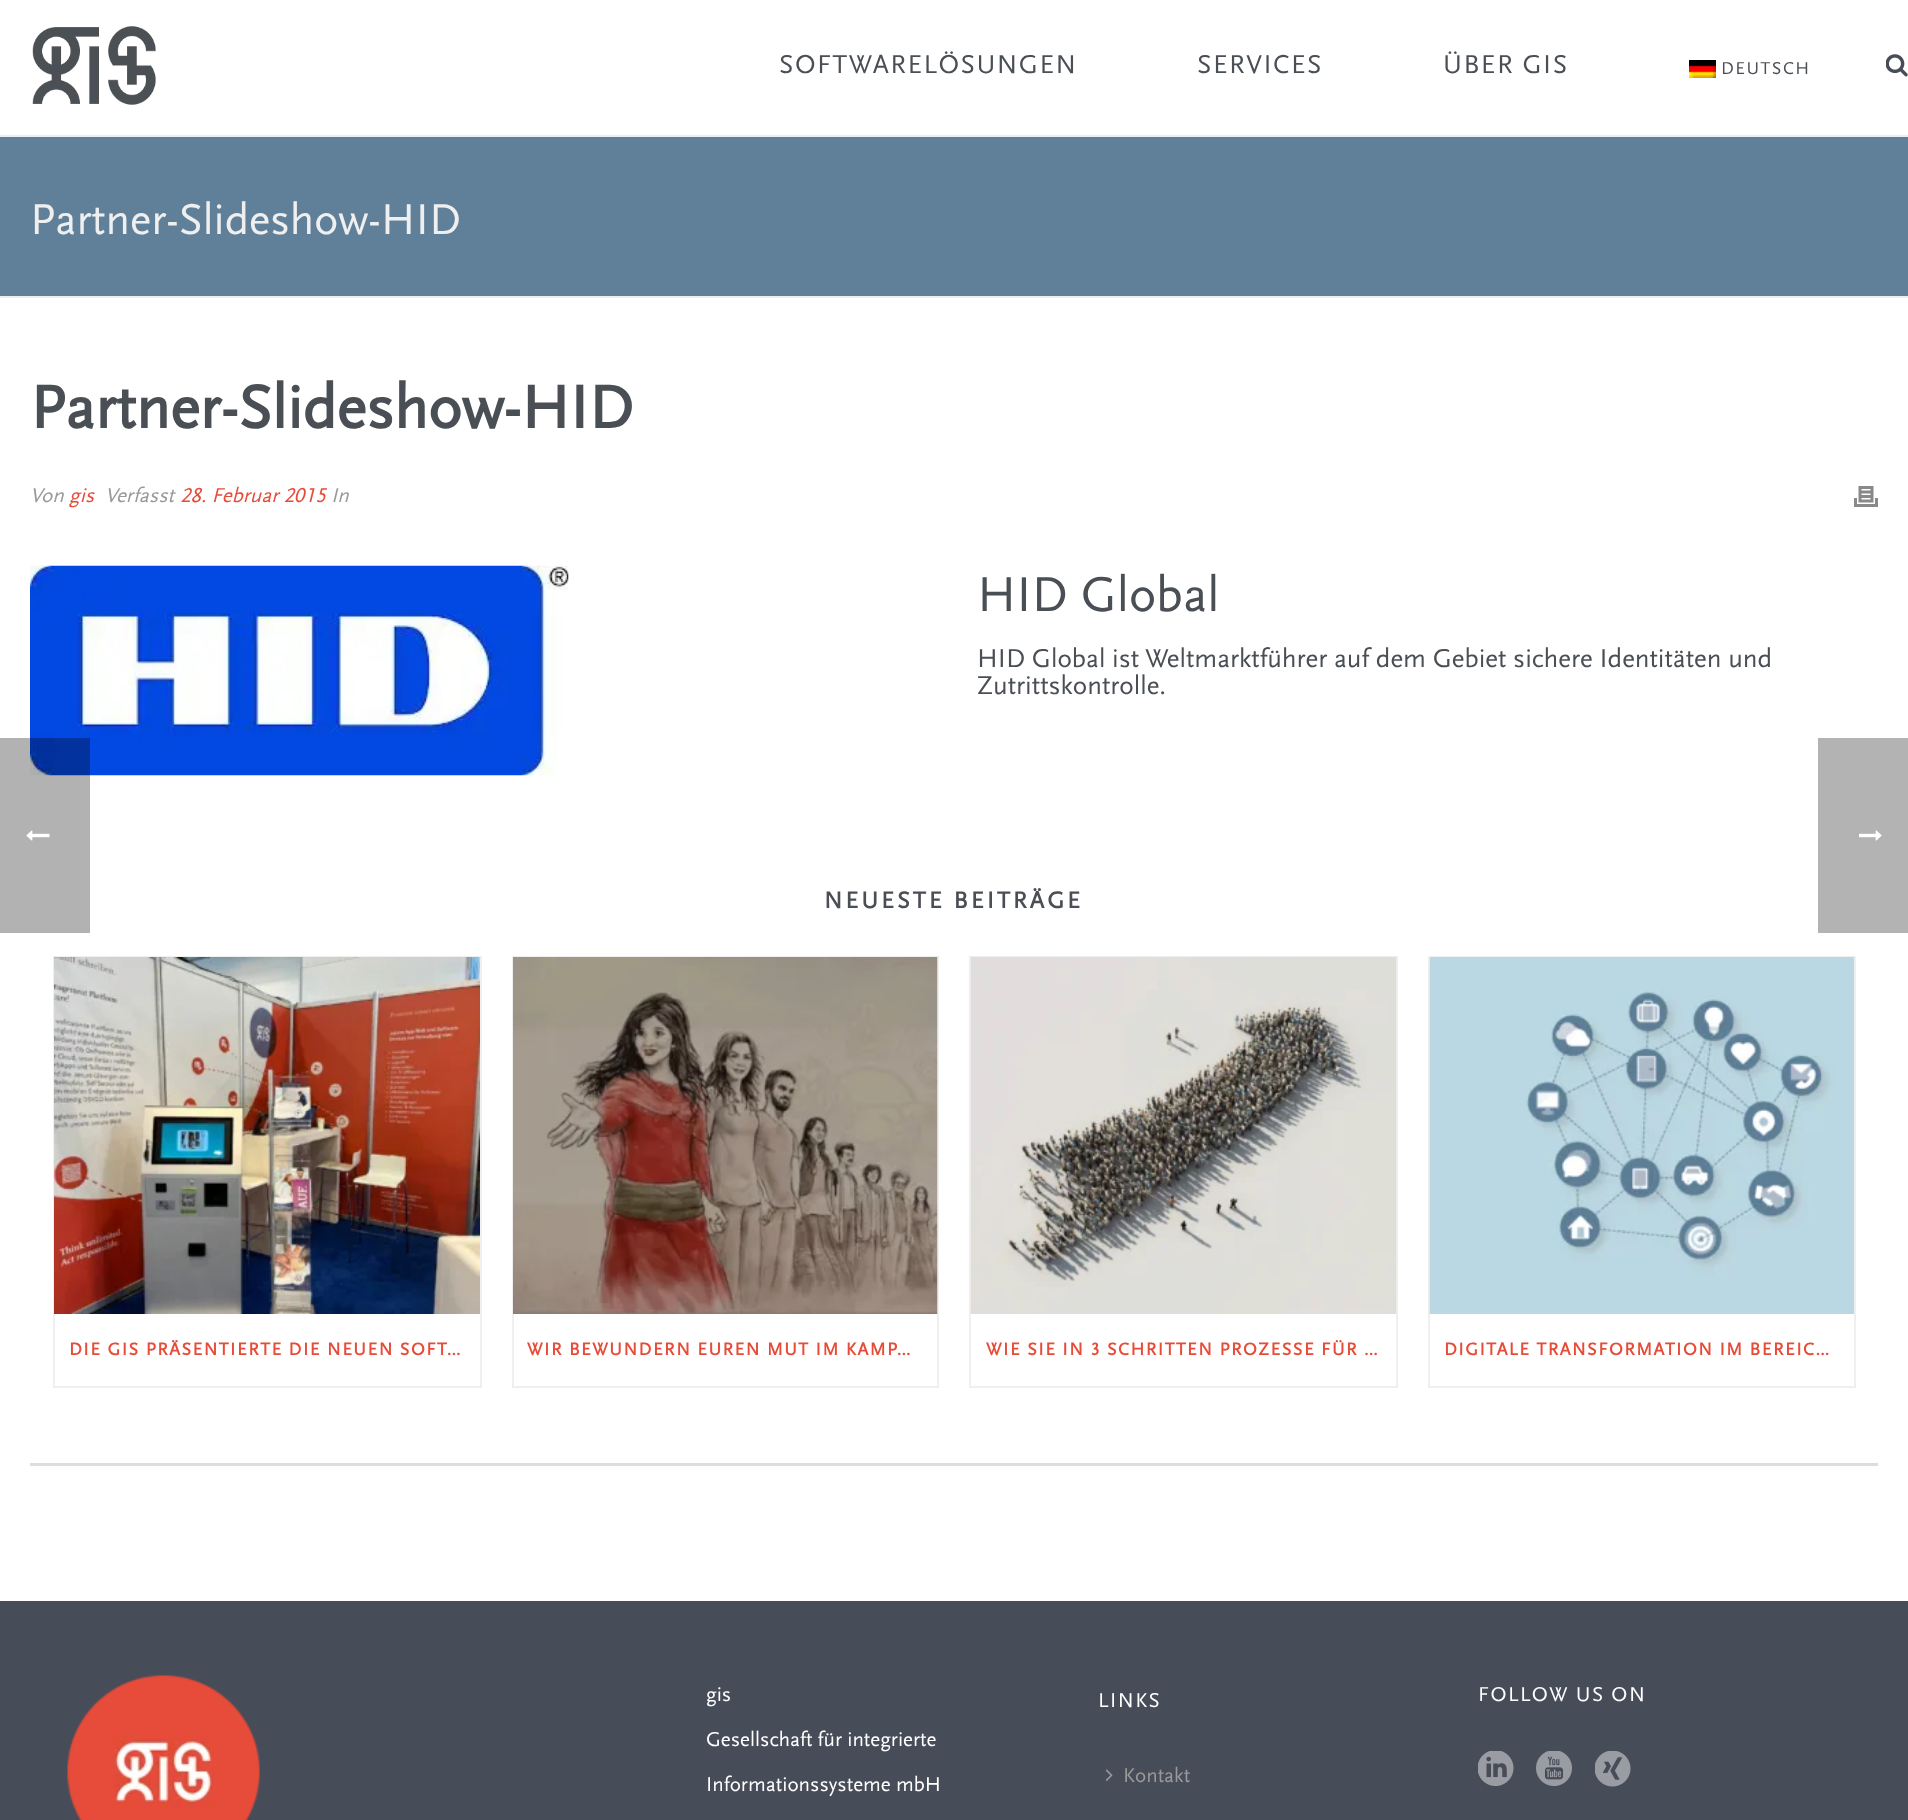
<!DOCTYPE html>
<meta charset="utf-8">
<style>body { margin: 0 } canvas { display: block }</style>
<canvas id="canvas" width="1908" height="1820"></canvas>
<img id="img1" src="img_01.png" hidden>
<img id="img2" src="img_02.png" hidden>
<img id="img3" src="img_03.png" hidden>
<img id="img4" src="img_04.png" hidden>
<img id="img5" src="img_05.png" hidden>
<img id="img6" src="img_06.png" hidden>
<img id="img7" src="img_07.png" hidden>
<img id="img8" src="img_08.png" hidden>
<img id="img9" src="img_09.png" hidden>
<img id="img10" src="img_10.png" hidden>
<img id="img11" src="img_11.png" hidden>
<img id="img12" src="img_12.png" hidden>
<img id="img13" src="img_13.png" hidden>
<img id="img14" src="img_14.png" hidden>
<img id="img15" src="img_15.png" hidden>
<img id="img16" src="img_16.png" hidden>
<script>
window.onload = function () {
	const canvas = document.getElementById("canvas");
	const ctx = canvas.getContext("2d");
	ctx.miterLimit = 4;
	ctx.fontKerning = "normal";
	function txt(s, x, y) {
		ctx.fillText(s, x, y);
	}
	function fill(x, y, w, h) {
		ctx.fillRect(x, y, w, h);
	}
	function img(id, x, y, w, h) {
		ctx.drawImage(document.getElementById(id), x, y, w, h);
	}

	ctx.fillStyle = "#FFFFFF";
	fill(0, 0, 1908, 1820);
	ctx.fillStyle = "#608099";
	fill(0, 137, 1908, 159);
	ctx.fillStyle = "#EDEDED";
	fill(0, 296, 1908, 2);
	fill(0, 135, 1908, 2);
	img("img1", 32, 26, 124, 79);
	img("img2", 1689, 60, 27, 18);
	img("img3", 1886, 54, 22, 23);
	img("img4", 1854, 486, 24, 21);
	img("img5", 30, 565, 539, 211);
	ctx.fillStyle = "#DDDDDD";
	fill(30, 1463, 1848, 3);
	ctx.strokeStyle = "#EFEFEF";
	ctx.lineWidth = 2;
	ctx.strokeRect(54, 957, 427, 430);
	img("img6", 54, 957, 426, 357);
	ctx.strokeRect(513, 957, 425, 430);
	img("img7", 513, 957, 425, 357);
	ctx.strokeRect(970, 957, 427, 430);
	img("img8", 970, 957, 427, 357);
	ctx.strokeRect(1429, 957, 426, 430);
	img("img9", 1429, 957, 425, 357);
	ctx.fillStyle = "#474C59";
	fill(0, 1601, 1908, 219);
	img("img10", 67, 1675, 193, 145);
	img("img11", 1106, 1769, 7, 12);
	img("img12", 1478, 1751, 36, 35);
	img("img13", 1536, 1751, 36, 35);
	img("img14", 1595, 1751, 36, 36);
	ctx.fillStyle = "rgba(0, 0, 0, 0.3)";
	fill(0, 738, 90, 195);
	img("img15", 26, 830, 24, 11);
	ctx.fillStyle = "#B3B3B3";
	fill(1818, 738, 90, 195);
	img("img16", 1859, 830, 23, 11);
	ctx.letterSpacing = "1.5px";
	ctx.font = "27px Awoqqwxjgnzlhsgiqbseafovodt";
	ctx.fillStyle = "#4A4F55";
	txt("SOFTWARELÖSUNGEN", 779, 73);
	txt("SERVICES", 1197, 73);
	txt("ÜBER GIS", 1443, 73);
	ctx.font = "18px Awoqqwxjgnzlhsgiqbseafovodt";
	txt("DEUTSCH", 1721, 74);
	ctx.letterSpacing = "0px";
	ctx.font = "45px Awoqqwxjgnzlhsgiqbseafovodt";
	ctx.fillStyle = "#EFEFEF";
	txt("Partner-Slideshow-HID", 30, 234);
	ctx.font = "bold 63px Awoqqwxjgnzlhsgiqbseafovodt";
	ctx.fillStyle = "#4A4F55";
	txt("Partner-Slideshow-HID", 30, 428);
	ctx.font = "italic 21px Awoqqwxjgnzlhsgiqbseafovodt";
	ctx.fillStyle = "#999999";
	txt("Von", 30, 502);
	ctx.fillStyle = "#E74C39";
	txt("gis", 69, 502);
	ctx.fillStyle = "#999999";
	txt("Verfasst", 105, 502);
	ctx.fillStyle = "#E74C39";
	txt("28. Februar 2015", 180, 502);
	ctx.fillStyle = "#999999";
	txt("In", 331, 502);
	ctx.font = "51px Awoqqwxjgnzlhsgiqbseafovodt";
	ctx.fillStyle = "#4A4F55";
	txt("HID Global", 977, 611);
	ctx.font = "27px Awoqqwxjgnzlhsgiqbseafovodt";
	txt("HID Global ist Weltmarktführer auf dem Gebiet sichere Identitäten und", 977, 667);
	txt("Zutrittskontrolle.", 977, 694);
	ctx.letterSpacing = "3px";
	ctx.font = "bold 24px Awoqqwxjgnzlhsgiqbseafovodt";
	txt("NEUESTE BEITRÄGE", 824, 908);
	ctx.letterSpacing = "1.5px";
	ctx.font = "bold 18px Awoqqwxjgnzlhsgiqbseafovodt";
	ctx.fillStyle = "#E74C39";
	txt("DIE GIS PRÄSENTIERTE DIE NEUEN SOFT…", 69, 1355);
	txt("WIR BEWUNDERN EUREN MUT IM KAMP…", 527, 1355);
	txt("WIE SIE IN 3 SCHRITTEN PROZESSE FÜR …", 986, 1355);
	txt("DIGITALE TRANSFORMATION IM BEREIC…", 1444, 1355);
	ctx.letterSpacing = "0px";
	ctx.font = "21px Awoqqwxjgnzlhsgiqbseafovodt";
	ctx.fillStyle = "#FFFFFF";
	txt("gis", 706, 1701);
	txt("Gesellschaft für integrierte", 706, 1746);
	txt("Informationssysteme mbH", 706, 1791);
	ctx.letterSpacing = "1.5px";
	txt("LINKS", 1098, 1707);
	ctx.letterSpacing = "0px";
	ctx.fillStyle = "#999999";
	txt("Kontakt", 1123, 1782);
	ctx.letterSpacing = "1.5px";
	ctx.fillStyle = "#FFFFFF";
	txt("FOLLOW US ON", 1478, 1701);
};
</script>
